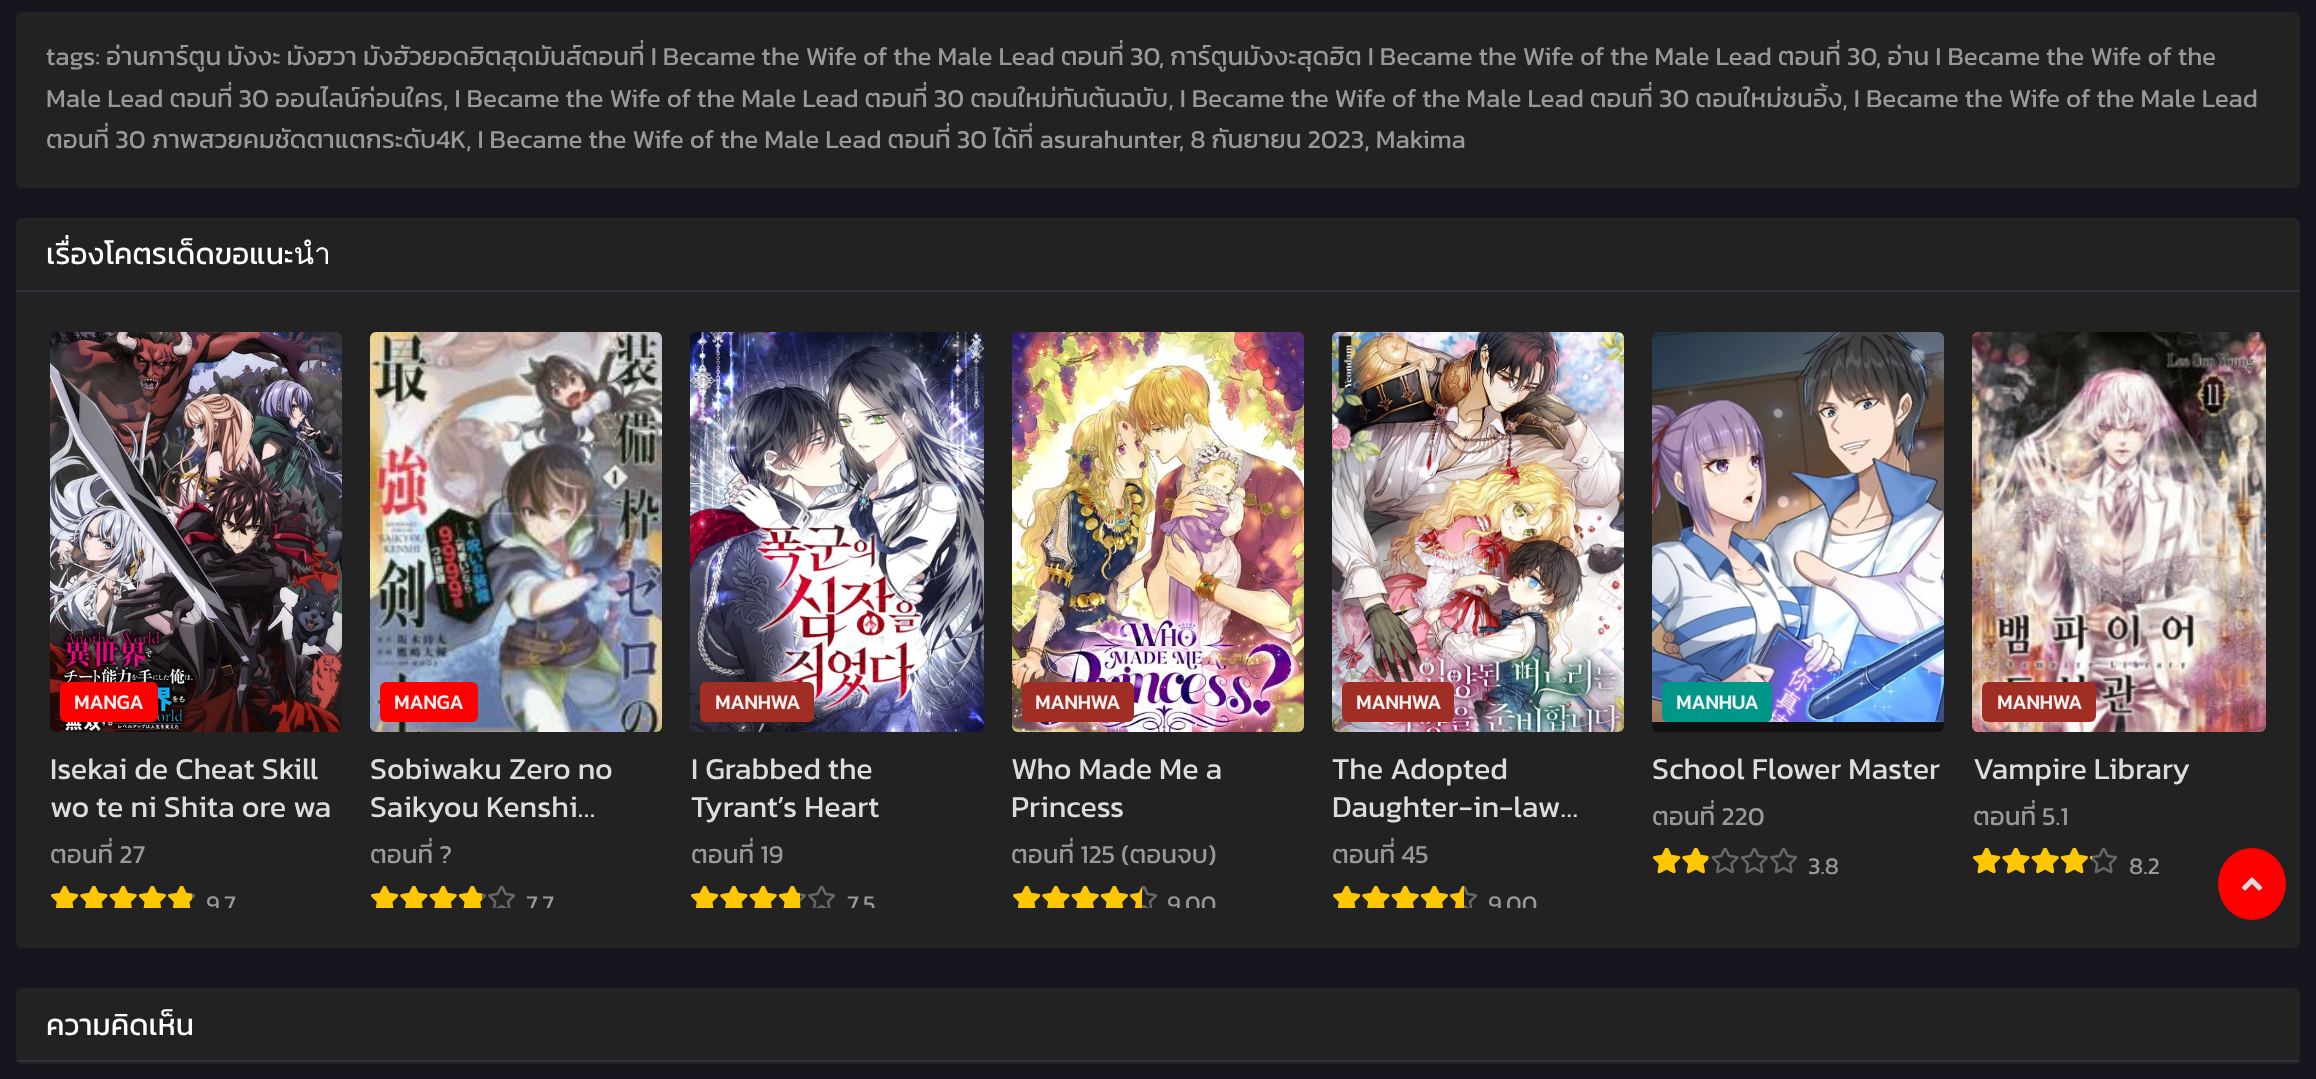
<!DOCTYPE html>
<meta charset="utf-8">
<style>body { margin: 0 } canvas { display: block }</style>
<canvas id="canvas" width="2316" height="1079"></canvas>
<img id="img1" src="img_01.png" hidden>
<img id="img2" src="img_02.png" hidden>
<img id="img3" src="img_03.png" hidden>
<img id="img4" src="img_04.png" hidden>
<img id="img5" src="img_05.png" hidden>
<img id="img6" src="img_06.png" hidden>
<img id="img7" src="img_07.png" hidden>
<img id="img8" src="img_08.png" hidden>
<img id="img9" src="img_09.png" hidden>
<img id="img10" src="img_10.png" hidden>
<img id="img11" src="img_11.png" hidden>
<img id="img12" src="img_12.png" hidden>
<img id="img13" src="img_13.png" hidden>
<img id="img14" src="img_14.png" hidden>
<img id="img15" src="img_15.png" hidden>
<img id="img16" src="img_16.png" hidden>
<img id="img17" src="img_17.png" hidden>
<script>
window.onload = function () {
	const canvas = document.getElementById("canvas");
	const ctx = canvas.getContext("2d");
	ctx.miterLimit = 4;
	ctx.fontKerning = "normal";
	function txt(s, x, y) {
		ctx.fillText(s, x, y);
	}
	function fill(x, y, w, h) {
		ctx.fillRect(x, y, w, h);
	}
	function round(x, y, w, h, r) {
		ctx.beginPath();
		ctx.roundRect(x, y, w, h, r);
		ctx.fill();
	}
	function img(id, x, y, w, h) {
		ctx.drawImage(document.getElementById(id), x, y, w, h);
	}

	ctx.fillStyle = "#16151D";
	fill(0, 0, 2316, 1079);
	ctx.fillStyle = "#222222";
	round(16, 12, 2284, 176, 6);
	round(16, 218, 2284, 730, 6);
	ctx.fillStyle = "#312F40";
	fill(16, 290, 2284, 2);
	img("img1", 50, 332, 292, 400);
	ctx.fillStyle = "#FF0000";
	round(60, 682, 98, 40, 6);
	img("img2", 51, 886, 145, 22);
	img("img3", 51, 886, 141, 22);
	img("img4", 370, 332, 292, 400);
	round(380, 682, 98, 40, 6);
	img("img2", 371, 886, 145, 22);
	img("img5", 371, 886, 111, 22);
	img("img6", 690, 332, 294, 400);
	ctx.fillStyle = "#A12E24";
	round(700, 682, 114, 40, 6);
	img("img2", 691, 886, 145, 22);
	img("img7", 691, 886, 109, 22);
	img("img8", 1012, 332, 292, 400);
	round(1022, 682, 112, 40, 6);
	img("img2", 1013, 886, 145, 22);
	img("img9", 1013, 886, 129, 22);
	img("img10", 1332, 332, 292, 400);
	round(1342, 682, 112, 40, 6);
	img("img2", 1333, 886, 145, 22);
	img("img11", 1333, 886, 131, 22);
	ctx.fillStyle = "#111111";
	round(1652, 332, 292, 400, 6);
	img("img12", 1652, 332, 292, 390);
	ctx.fillStyle = "#009688";
	round(1662, 682, 110, 40, 6);
	img("img13", 1653, 848, 145, 26);
	img("img14", 1653, 848, 55, 26);
	img("img15", 1972, 332, 294, 400);
	ctx.fillStyle = "#A12E24";
	round(1982, 682, 114, 40, 6);
	img("img13", 1973, 848, 145, 26);
	img("img16", 1973, 848, 119, 26);
	ctx.fillStyle = "#222222";
	round(16, 988, 2284, 76, 6);
	ctx.save();
	ctx.beginPath();
	ctx.roundRect(16, 988, 2284, 76, 6);
	ctx.clip();
	ctx.fillStyle = "#312F40";
	fill(16, 1060, 2284, 2);
	ctx.restore();
	ctx.fillStyle = "#FF0000";
	ctx.beginPath();
	ctx.ellipse(2252, 884, 34, 36, 0, 0, Math.PI * 2);
	ctx.fill();
	img("img17", 2242, 877, 20, 14);
	ctx.font = "26px Kanit";
	ctx.fillStyle = "#999999";
	txt("tags: อ่านการ์ตูน มังงะ มังฮวา มังฮัวยอดฮิตสุดมันส์ตอนที่ I Became the Wife of the Male Lead ตอนที่ 30, การ์ตูนมังงะสุดฮิต I Became the Wife of the Male Lead ตอนที่ 30, อ่าน I Became the Wife of the", 46, 65);
	txt("Male Lead ตอนที่ 30 ออนไลน์ก่อนใคร, I Became the Wife of the Male Lead ตอนที่ 30 ตอนใหม่ทันต้นฉบับ, I Became the Wife of the Male Lead ตอนที่ 30 ตอนใหม่ชนอิ้ง, I Became the Wife of the Male Lead", 46, 107);
	txt("ตอนที่ 30 ภาพสวยคมชัดตาแตกระดับ4K, I Became the Wife of the Male Lead ตอนที่ 30 ได้ที่ asurahunter, 8 กันยายน 2023, Makima", 46, 148);
	ctx.font = "30px Kanit";
	ctx.fillStyle = "#FFFFFF";
	txt("เรื่องโคตรเด็ดขอแนะนำ", 46, 264);
	ctx.font = "bold 20px Kanit";
	ctx.fillStyle = "#EFEFEF";
	txt("MANGA", 74, 709);
	ctx.font = "30.5px Kanit";
	ctx.fillStyle = "#DDDDDD";
	txt("Isekai de Cheat Skill", 50, 779);
	txt("wo te ni Shita ore wa", 50, 817);
	ctx.font = "26px Kanit";
	ctx.fillStyle = "#999999";
	txt("ตอนที่ 27", 50, 863);
	ctx.save();
	ctx.beginPath();
	ctx.rect(50, 886, 292, 22);
	ctx.clip();
	ctx.font = "24px Kanit";
	txt("9.7", 206, 912);
	ctx.restore();
	ctx.font = "bold 20px Kanit";
	ctx.fillStyle = "#EFEFEF";
	txt("MANGA", 394, 709);
	ctx.font = "30.5px Kanit";
	ctx.fillStyle = "#DDDDDD";
	txt("Sobiwaku Zero no", 370, 779);
	txt("Saikyou Kenshi…", 370, 817);
	ctx.font = "26px Kanit";
	ctx.fillStyle = "#999999";
	txt("ตอนที่ ?", 370, 863);
	ctx.save();
	ctx.beginPath();
	ctx.rect(370, 886, 292, 22);
	ctx.clip();
	ctx.font = "24px Kanit";
	txt("7.7", 526, 912);
	ctx.restore();
	ctx.font = "bold 20px Kanit";
	ctx.fillStyle = "#EFEFEF";
	txt("MANHWA", 715, 709);
	ctx.font = "30.5px Kanit";
	ctx.fillStyle = "#DDDDDD";
	txt("I Grabbed the", 691, 779);
	txt("Tyrant’s Heart", 691, 817);
	ctx.font = "26px Kanit";
	ctx.fillStyle = "#999999";
	txt("ตอนที่ 19", 691, 863);
	ctx.save();
	ctx.beginPath();
	ctx.rect(690, 886, 294, 22);
	ctx.clip();
	ctx.font = "24px Kanit";
	txt("7.5", 847, 912);
	ctx.restore();
	ctx.font = "bold 20px Kanit";
	ctx.fillStyle = "#EFEFEF";
	txt("MANHWA", 1035, 709);
	ctx.font = "30.5px Kanit";
	ctx.fillStyle = "#DDDDDD";
	txt("Who Made Me a", 1011, 779);
	txt("Princess", 1011, 817);
	ctx.font = "26px Kanit";
	ctx.fillStyle = "#999999";
	txt("ตอนที่ 125 (ตอนจบ)", 1011, 863);
	ctx.save();
	ctx.beginPath();
	ctx.rect(1012, 886, 292, 22);
	ctx.clip();
	ctx.font = "24px Kanit";
	txt("9.00", 1167, 912);
	ctx.restore();
	ctx.font = "bold 20px Kanit";
	ctx.fillStyle = "#EFEFEF";
	txt("MANHWA", 1356, 709);
	ctx.font = "30.5px Kanit";
	ctx.fillStyle = "#DDDDDD";
	txt("The Adopted", 1332, 779);
	txt("Daughter-in-law…", 1332, 817);
	ctx.font = "26px Kanit";
	ctx.fillStyle = "#999999";
	txt("ตอนที่ 45", 1332, 863);
	ctx.save();
	ctx.beginPath();
	ctx.rect(1332, 886, 292, 22);
	ctx.clip();
	ctx.font = "24px Kanit";
	txt("9.00", 1488, 912);
	ctx.restore();
	ctx.font = "bold 20px Kanit";
	ctx.fillStyle = "#EFEFEF";
	txt("MANHUA", 1676, 709);
	ctx.font = "30.5px Kanit";
	ctx.fillStyle = "#DDDDDD";
	txt("School Flower Master", 1652, 779);
	ctx.font = "26px Kanit";
	ctx.fillStyle = "#999999";
	txt("ตอนที่ 220", 1652, 825);
	ctx.font = "24px Kanit";
	txt("3.8", 1808, 874);
	ctx.font = "bold 20px Kanit";
	ctx.fillStyle = "#EFEFEF";
	txt("MANHWA", 1997, 709);
	ctx.font = "30.5px Kanit";
	ctx.fillStyle = "#DDDDDD";
	txt("Vampire Library", 1973, 779);
	ctx.font = "26px Kanit";
	ctx.fillStyle = "#999999";
	txt("ตอนที่ 5.1", 1973, 825);
	ctx.font = "24px Kanit";
	txt("8.2", 2129, 874);
	ctx.font = "30px Kanit";
	ctx.fillStyle = "#FFFFFF";
	txt("ความคิดเห็น", 46, 1035);
};
</script>
